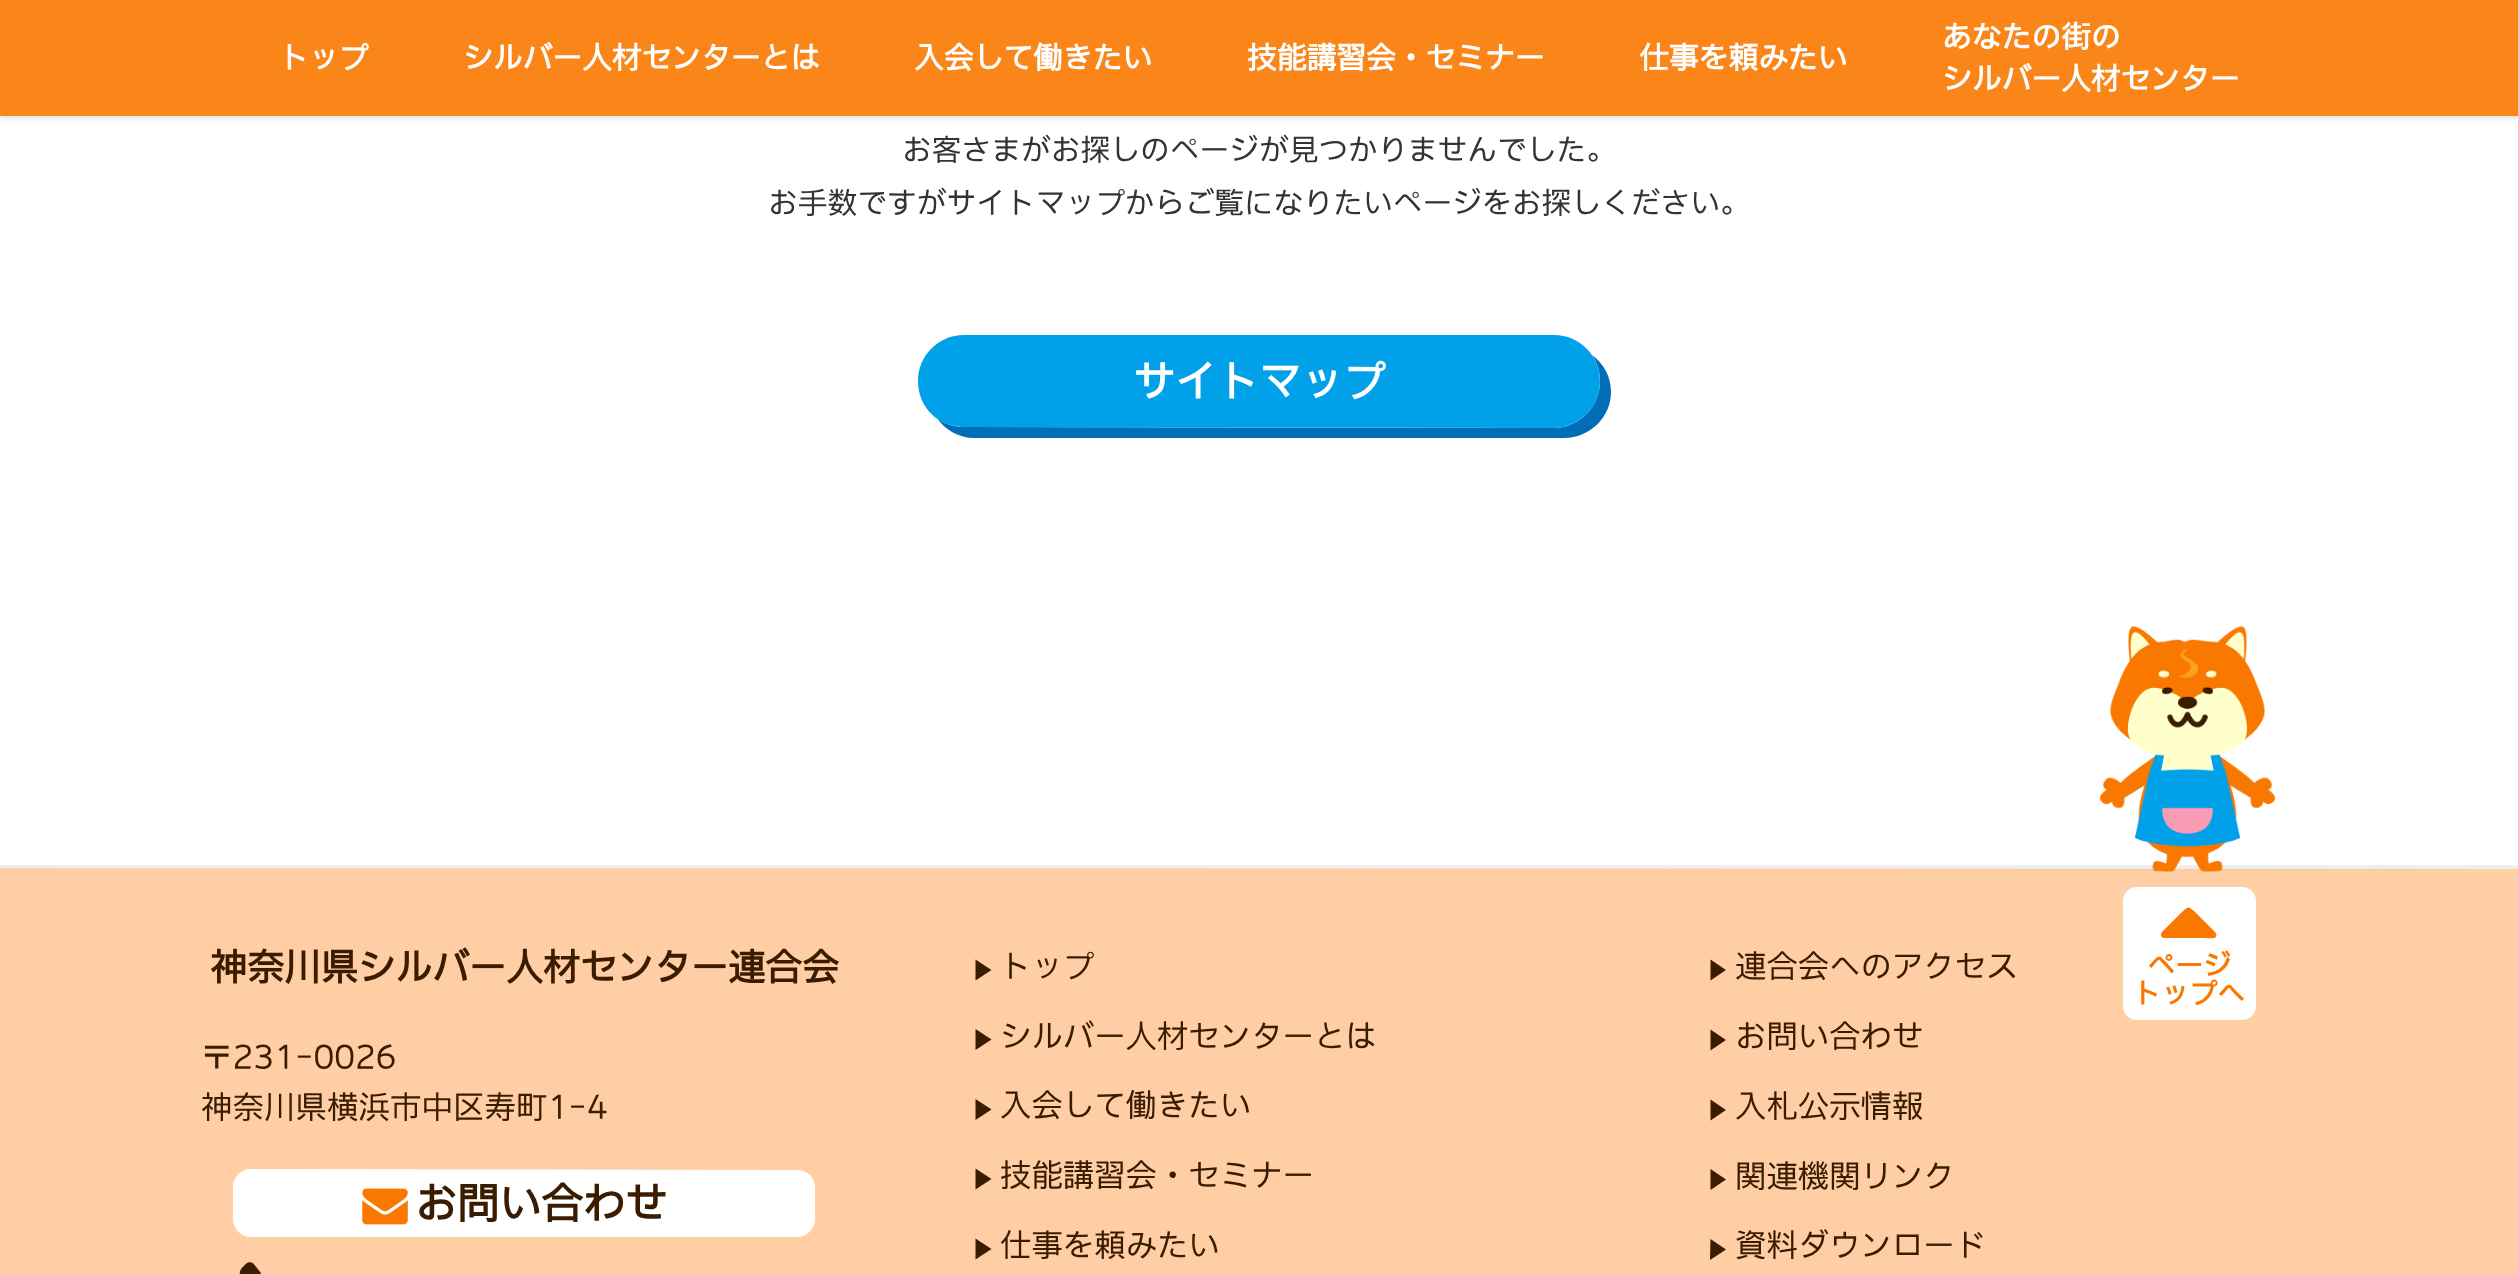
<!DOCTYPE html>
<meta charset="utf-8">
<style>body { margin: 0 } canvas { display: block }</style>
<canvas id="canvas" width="2518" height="1274"></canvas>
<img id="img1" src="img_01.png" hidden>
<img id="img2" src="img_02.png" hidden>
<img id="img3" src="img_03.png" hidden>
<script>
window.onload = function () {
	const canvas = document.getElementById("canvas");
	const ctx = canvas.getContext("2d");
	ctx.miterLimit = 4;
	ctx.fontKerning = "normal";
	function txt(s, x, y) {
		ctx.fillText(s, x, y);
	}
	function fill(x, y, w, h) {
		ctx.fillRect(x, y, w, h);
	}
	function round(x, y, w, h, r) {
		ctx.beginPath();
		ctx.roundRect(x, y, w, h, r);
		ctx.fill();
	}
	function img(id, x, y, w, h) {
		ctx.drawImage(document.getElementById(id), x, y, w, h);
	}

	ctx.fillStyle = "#FFFFFF";
	fill(0, 0, 2518, 1274);
	ctx.save();
	ctx.beginPath();
	ctx.moveTo(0, 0);
	ctx.lineTo(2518, 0);
	ctx.lineTo(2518, 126);
	ctx.lineTo(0, 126);
	ctx.closePath();
	ctx.moveTo(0, 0);
	ctx.lineTo(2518, 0);
	ctx.lineTo(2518, 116);
	ctx.lineTo(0, 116);
	ctx.closePath();
	ctx.clip("evenodd");
	ctx.fillStyle = "rgba(0, 0, 0, 0.1)";
	ctx.filter = "blur(2px)";
	ctx.beginPath();
	ctx.rect(0, 4, 2518, 115);
	ctx.fill();
	ctx.filter = "none";
	ctx.restore();
	ctx.fillStyle = "rgba(249, 120, 0, 0.9)";
	fill(0, 0, 2518, 116);
	ctx.fillStyle = "#006DB5";
	ctx.beginPath();
	ctx.moveTo(937, 418);
	ctx.bezierCurveTo(945, 430, 959, 438, 974, 438);
	ctx.lineTo(1564, 438);
	ctx.bezierCurveTo(1590, 438, 1611, 417, 1611, 392);
	ctx.bezierCurveTo(1611, 376, 1603, 363, 1592, 355);
	ctx.bezierCurveTo(1597, 362, 1600, 371, 1600, 381);
	ctx.bezierCurveTo(1600, 407, 1579, 428, 1554, 428);
	ctx.lineTo(964, 427);
	ctx.bezierCurveTo(954, 427, 944, 424, 937, 418);
	ctx.closePath();
	ctx.fill();
	ctx.fillStyle = "#00A1E9";
	ctx.beginPath();
	ctx.moveTo(964, 335);
	ctx.lineTo(1554, 335);
	ctx.bezierCurveTo(1580, 335, 1600, 356, 1600, 381);
	ctx.bezierCurveTo(1600, 407, 1579, 428, 1554, 428);
	ctx.lineTo(964, 427);
	ctx.bezierCurveTo(938, 427, 918, 407, 918, 381);
	ctx.bezierCurveTo(918, 356, 938, 335, 964, 335);
	ctx.closePath();
	ctx.fill();
	ctx.fillStyle = "#FFCEA4";
	fill(0, 868, 2518, 406);
	ctx.fillStyle = "#EEEEEE";
	fill(0, 865, 2518, 2);
	ctx.beginPath();
	ctx.moveTo(0, 866);
	ctx.lineTo(2518, 867);
	ctx.lineTo(2518, 869);
	ctx.lineTo(0, 868);
	ctx.closePath();
	ctx.fill();
	ctx.fillStyle = "#FFFFFF";
	ctx.beginPath();
	ctx.moveTo(251, 1169);
	ctx.lineTo(797, 1170);
	ctx.bezierCurveTo(807, 1170, 815, 1177, 815, 1187);
	ctx.lineTo(815, 1219);
	ctx.bezierCurveTo(815, 1229, 807, 1237, 797, 1237);
	ctx.lineTo(251, 1237);
	ctx.bezierCurveTo(241, 1237, 233, 1229, 233, 1219);
	ctx.lineTo(233, 1187);
	ctx.bezierCurveTo(233, 1177, 241, 1169, 251, 1169);
	ctx.closePath();
	ctx.fill();
	img("img1", 362, 1188, 46, 37);
	img("img2", 239, 1262, 22, 12);
	ctx.fillStyle = "#3A1C00";
	ctx.beginPath();
	ctx.moveTo(975.5, 980.5);
	ctx.lineTo(975.5, 959.5);
	ctx.lineTo(991.5, 970);
	ctx.closePath();
	ctx.fill();
	ctx.beginPath();
	ctx.moveTo(975.5, 1050);
	ctx.lineTo(975.5, 1029);
	ctx.lineTo(991.5, 1039.5);
	ctx.closePath();
	ctx.fill();
	ctx.beginPath();
	ctx.moveTo(975.5, 1120);
	ctx.lineTo(975.5, 1099);
	ctx.lineTo(991.5, 1109.5);
	ctx.closePath();
	ctx.fill();
	ctx.beginPath();
	ctx.moveTo(975.5, 1189.5);
	ctx.lineTo(975.5, 1168.5);
	ctx.lineTo(991.5, 1179);
	ctx.closePath();
	ctx.fill();
	ctx.beginPath();
	ctx.moveTo(975.5, 1259.5);
	ctx.lineTo(975.5, 1238.5);
	ctx.lineTo(991.5, 1249);
	ctx.closePath();
	ctx.fill();
	ctx.beginPath();
	ctx.moveTo(1710.5, 980.5);
	ctx.lineTo(1710.5, 959.5);
	ctx.lineTo(1726, 970);
	ctx.closePath();
	ctx.fill();
	ctx.beginPath();
	ctx.moveTo(1710.5, 1050.5);
	ctx.lineTo(1710.5, 1029.5);
	ctx.lineTo(1726, 1040);
	ctx.closePath();
	ctx.fill();
	ctx.beginPath();
	ctx.moveTo(1710.5, 1120.5);
	ctx.lineTo(1710.5, 1099.5);
	ctx.lineTo(1726, 1110);
	ctx.closePath();
	ctx.fill();
	ctx.beginPath();
	ctx.moveTo(1710.5, 1190);
	ctx.lineTo(1710.5, 1169);
	ctx.lineTo(1726, 1179.5);
	ctx.closePath();
	ctx.fill();
	ctx.beginPath();
	ctx.moveTo(1710, 1260);
	ctx.lineTo(1710.5, 1239);
	ctx.lineTo(1726, 1249.5);
	ctx.closePath();
	ctx.fill();
	ctx.fillStyle = "#FFFFFF";
	round(2123, 887, 133, 133, 14);
	img("img3", 2100, 626, 175, 246);
	ctx.fillStyle = "#F97800";
	ctx.beginPath();
	ctx.moveTo(2215, 932);
	ctx.lineTo(2216, 934);
	ctx.bezierCurveTo(2219, 940, 2206, 938, 2205, 938);
	ctx.lineTo(2164, 938);
	ctx.bezierCurveTo(2161, 938, 2160, 934, 2162, 932);
	ctx.lineTo(2182, 912);
	ctx.bezierCurveTo(2189, 906, 2188, 906, 2195, 912);
	ctx.closePath();
	ctx.fill();
	ctx.font = "bold 29.75px 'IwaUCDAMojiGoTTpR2'";
	ctx.fillStyle = "#FFFFFF";
	txt("トップ", 279, 68);
	txt("シルバー人材センターとは", 463, 68);
	txt("入会して働きたい", 914, 68);
	txt("技能講習会・セミナー", 1247, 68);
	txt("仕事を頼みたい", 1639, 68);
	txt("あなたの街の", 1942, 47);
	txt("シルバー人材センター", 1942, 89);
	ctx.font = "29.75px 'IwaUCDAMojiGoTTpR2'";
	ctx.fillStyle = "#333333";
	txt("お客さまがお探しのページが見つかりませんでした。", 902, 160);
	txt("お手数ですがサイトマップからご覧になりたいページをお探しください。", 768, 213);
	ctx.font = "bold 42px 'IwaUCDAMojiGoTTpR2'";
	ctx.fillStyle = "#FFFFFF";
	txt("サイトマップ", 1133, 396);
	ctx.font = "bold 37px 'IwaUCDAMojiGoTTpR2'";
	ctx.fillStyle = "#3A1C00";
	txt("神奈川県シルバー人材センター連合会", 210, 980);
	ctx.font = "31.5px 'IwaUCDAMojiGoTTpR2'";
	txt("〒231-0026", 201, 1068);
	txt("神奈川県横浜市中区寿町1-4", 201, 1118);
	ctx.font = "bold 42px 'IwaUCDAMojiGoTTpR2'";
	txt("お問い合わせ", 415, 1218);
	ctx.font = "31.4px 'IwaUCDAMojiGoTTpR2'";
	txt("トップ", 1000, 977);
	txt("シルバー人材センターとは", 1000, 1047);
	txt("入会して働きたい", 1000, 1116);
	txt("技能講習会・セミナー", 1000, 1186);
	txt("仕事を頼みたい", 1000, 1256);
	txt("連合会へのアクセス", 1735, 977);
	txt("お問い合わせ", 1735, 1047);
	txt("入札公示情報", 1735, 1117);
	txt("関連機関リンク", 1735, 1187);
	txt("資料ダウンロード", 1735, 1256);
	ctx.font = "bold 28px 'IwaUCDAMojiGoTTpR2'";
	ctx.fillStyle = "#F97800";
	txt("ページ", 2147, 975);
	txt("トップへ", 2133, 1003);
};
</script>
